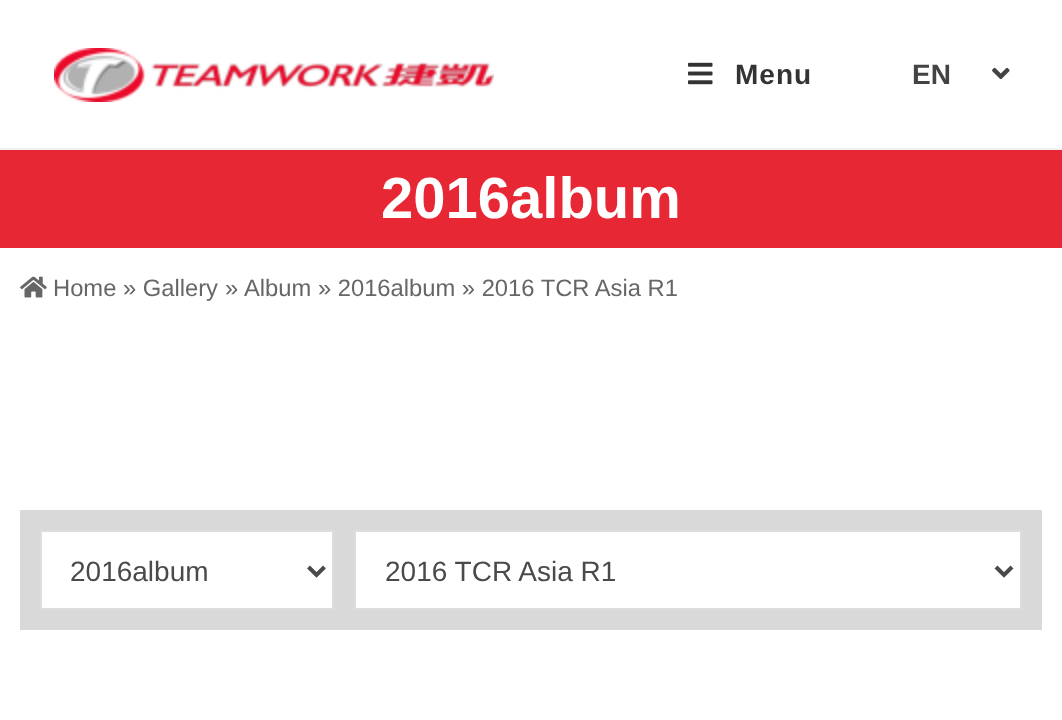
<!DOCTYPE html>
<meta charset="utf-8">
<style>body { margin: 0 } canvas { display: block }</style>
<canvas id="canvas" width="1062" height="720"></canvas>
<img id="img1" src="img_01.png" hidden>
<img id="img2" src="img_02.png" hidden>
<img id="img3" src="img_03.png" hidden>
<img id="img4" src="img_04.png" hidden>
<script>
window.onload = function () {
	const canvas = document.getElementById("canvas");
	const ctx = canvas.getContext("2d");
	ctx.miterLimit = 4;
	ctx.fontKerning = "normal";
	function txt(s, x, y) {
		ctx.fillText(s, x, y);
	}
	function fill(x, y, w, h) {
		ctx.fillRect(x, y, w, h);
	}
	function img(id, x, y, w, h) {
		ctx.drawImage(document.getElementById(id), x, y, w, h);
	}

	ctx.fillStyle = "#FFFFFF";
	fill(0, 0, 1062, 720);
	ctx.fillStyle = "#F1F1F1";
	fill(0, 148, 1062, 2);
	img("img1", 54, 48, 440, 54);
	img("img2", 688, 62, 25, 23);
	img("img3", 992, 67, 18, 13);
	ctx.fillStyle = "#E72734";
	fill(0, 150, 1062, 98);
	img("img4", 20, 276, 27, 22);
	ctx.fillStyle = "#D9D9D9";
	fill(20, 510, 1022, 120);
	ctx.fillStyle = "#FFFFFF";
	ctx.beginPath();
	ctx.rect(41, 531, 292, 78);
	ctx.fill();
	ctx.strokeStyle = "#DDDDDD";
	ctx.lineWidth = 2;
	ctx.stroke();
	ctx.beginPath();
	ctx.moveTo(308.5, 567);
	ctx.lineTo(316.5, 575);
	ctx.lineTo(324.5, 567);
	ctx.strokeStyle = "#4A4A4A";
	ctx.lineWidth = 4;
	ctx.stroke();
	ctx.beginPath();
	ctx.rect(355, 531, 666, 78);
	ctx.fill();
	ctx.strokeStyle = "#DDDDDD";
	ctx.lineWidth = 2;
	ctx.stroke();
	ctx.beginPath();
	ctx.moveTo(996, 567);
	ctx.lineTo(1004, 575);
	ctx.lineTo(1012, 567);
	ctx.strokeStyle = "#4A4A4A";
	ctx.lineWidth = 4;
	ctx.stroke();
	ctx.letterSpacing = "1px";
	ctx.font = "bold 28px Liberation Sans";
	ctx.fillStyle = "#333333";
	txt("Menu", 735, 84);
	ctx.letterSpacing = "0px";
	ctx.fillStyle = "#434343";
	txt("EN", 912, 84);
	ctx.font = "bold 58px Liberation Sans";
	ctx.fillStyle = "#FFFFFF";
	txt("2016album", 381, 218);
	ctx.font = "23.75px Liberation Sans";
	ctx.fillStyle = "#666666";
	txt("Home » Gallery", 53, 296);
	txt("»", 225, 296);
	txt("Album » 2016album » 2016 TCR Asia R1", 244, 296);
	ctx.font = "28px Liberation Sans";
	ctx.fillStyle = "#4A4A4A";
	txt("2016album", 70, 581);
	txt("2016 TCR Asia R1", 385, 581);
};
</script>
